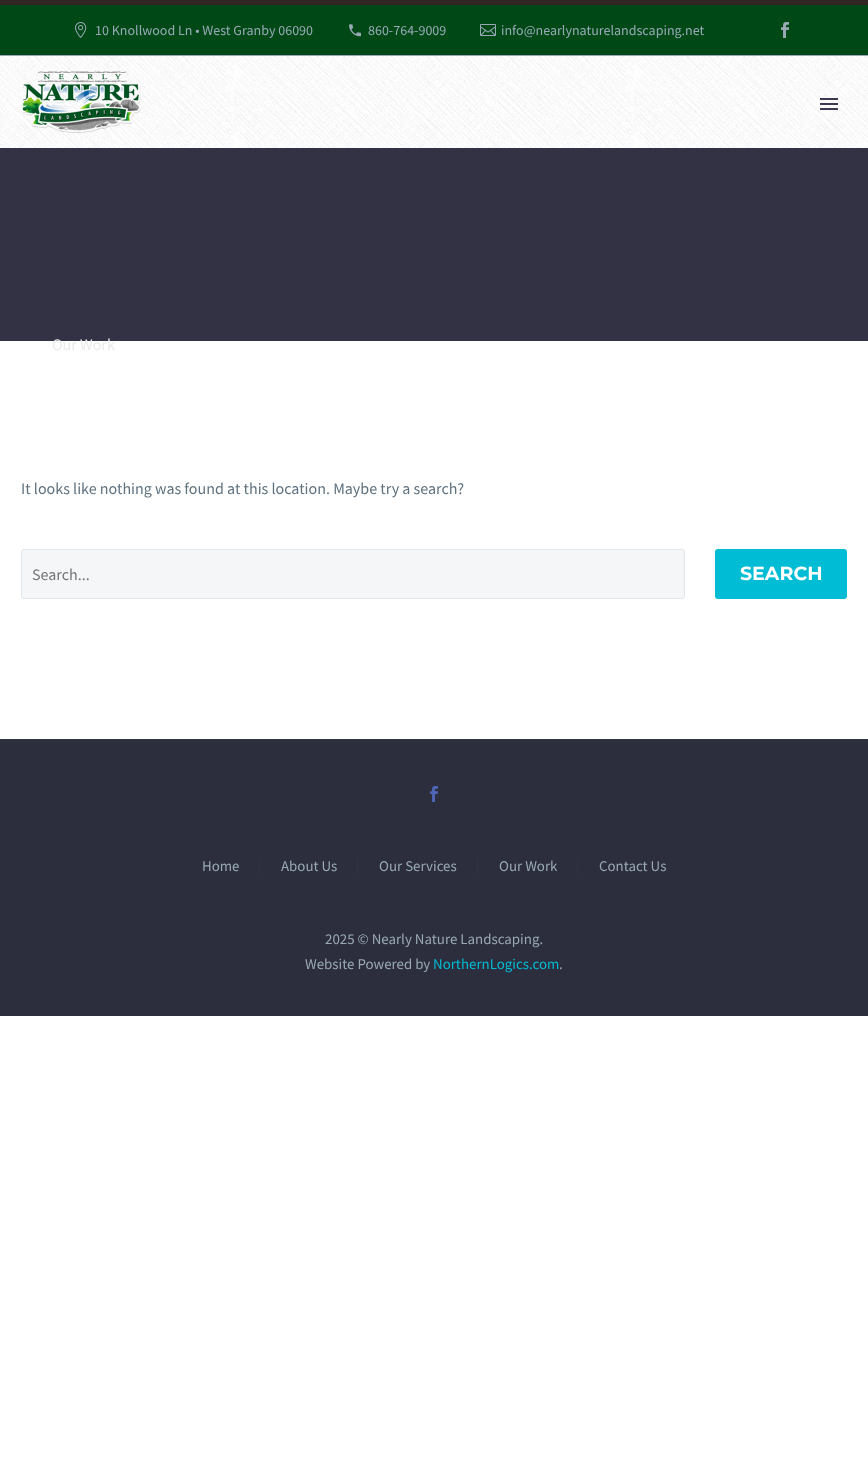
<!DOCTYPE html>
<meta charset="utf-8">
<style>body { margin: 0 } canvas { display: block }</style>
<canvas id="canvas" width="868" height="1462"></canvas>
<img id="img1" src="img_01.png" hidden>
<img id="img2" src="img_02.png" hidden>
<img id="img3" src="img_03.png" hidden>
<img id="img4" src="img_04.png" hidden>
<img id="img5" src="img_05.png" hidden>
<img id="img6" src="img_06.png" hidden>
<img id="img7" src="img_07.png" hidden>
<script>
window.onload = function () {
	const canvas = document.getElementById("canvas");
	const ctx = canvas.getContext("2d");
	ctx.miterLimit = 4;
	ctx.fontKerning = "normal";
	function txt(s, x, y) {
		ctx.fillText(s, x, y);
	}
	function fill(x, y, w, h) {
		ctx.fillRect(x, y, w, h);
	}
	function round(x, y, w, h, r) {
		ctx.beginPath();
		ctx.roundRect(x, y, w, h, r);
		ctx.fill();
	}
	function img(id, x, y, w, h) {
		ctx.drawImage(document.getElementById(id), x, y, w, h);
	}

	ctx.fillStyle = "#FFFFFF";
	fill(0, 0, 868, 1462);
	ctx.fillStyle = "#004916";
	fill(0, 5, 868, 50);
	ctx.fillStyle = "#332524";
	fill(0, 0, 868, 5);
	ctx.fillStyle = "#99A9B5";
	fill(0, 55, 868, 1);
	img("img1", 75, 22, 12, 16);
	img("img2", 349, 24, 12, 13);
	img("img3", 480, 24, 16, 12);
	img("img4", 781, 22, 8, 16);
	img("img5", 0, 56, 868, 92);
	img("img6", 21, 71, 120, 62);
	ctx.fillStyle = "#3C3950";
	fill(820, 98, 18, 2);
	fill(820, 103, 18, 2);
	fill(820, 108, 18, 2);
	ctx.fillStyle = "#333144";
	fill(0, 148, 868, 193);
	ctx.fillStyle = "#F4F6F7";
	ctx.beginPath();
	ctx.roundRect(21.5, 549.5, 663, 49, 2.5);
	ctx.fill();
	ctx.strokeStyle = "#DFE5E8";
	ctx.stroke();
	ctx.fillStyle = "#00BCD4";
	round(715, 549, 132, 50, 3);
	ctx.fillStyle = "#2C2E3D";
	fill(0, 740, 868, 276);
	ctx.fillStyle = "#313646";
	fill(0, 739, 868, 1);
	img("img7", 430, 786, 8, 16);
	ctx.fillStyle = "#333146";
	fill(259, 859, 1, 14);
	fill(357, 859, 1, 14);
	fill(477, 859, 1, 14);
	fill(577, 859, 1, 14);
	ctx.font = "14px Source Sans Pro";
	ctx.fillStyle = "#99A9B5";
	txt("10 Knollwood Ln • West Granby 06090", 95, 35);
	txt("860-764-9009", 368, 35);
	txt("info@nearlynaturelandscaping.net", 501, 35);
	ctx.font = "16px Source Sans Pro";
	ctx.fillStyle = "#EAEAEC";
	txt("Our Work", 52, 350);
	ctx.fillStyle = "#5F727F";
	txt("It looks like nothing was found at this location. Maybe try a search?", 21, 494);
	ctx.fillStyle = "#757575";
	txt("Search...", 32, 580);
	ctx.font = "bold 19px Montserrat";
	ctx.fillStyle = "#FFFFFF";
	txt("SEARCH", 740, 580);
	ctx.font = "14.9px Source Sans Pro";
	ctx.fillStyle = "#99A9B5";
	txt("Home", 202, 871);
	txt("About Us", 281, 871);
	txt("Our Services", 379, 871);
	txt("Our Work", 499, 871);
	txt("Contact Us", 599, 871);
	txt("2025 © Nearly Nature Landscaping.", 325, 944);
	txt("Website Powered by", 305, 969);
	ctx.fillStyle = "#00BCD4";
	txt("NorthernLogics.com", 433, 969);
	ctx.fillStyle = "#99A9B5";
	txt(".", 559, 969);
};
</script>
